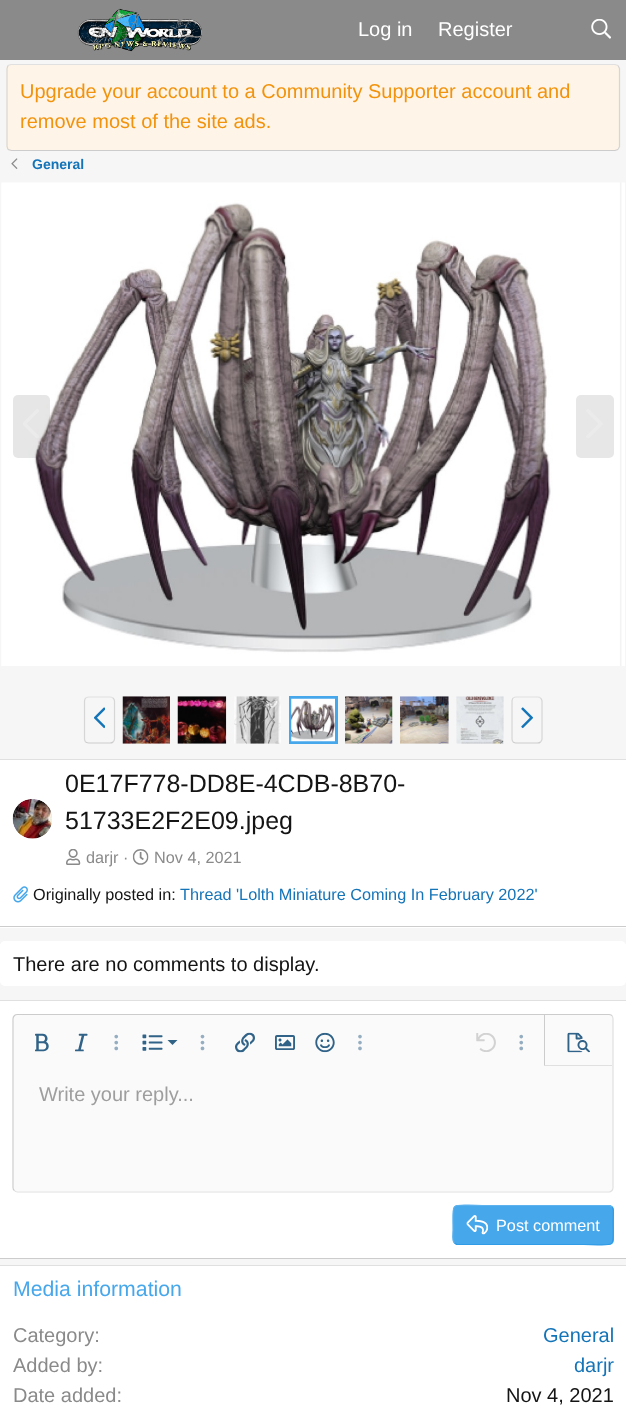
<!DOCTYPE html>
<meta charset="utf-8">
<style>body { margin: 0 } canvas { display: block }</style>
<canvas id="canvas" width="626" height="1411"></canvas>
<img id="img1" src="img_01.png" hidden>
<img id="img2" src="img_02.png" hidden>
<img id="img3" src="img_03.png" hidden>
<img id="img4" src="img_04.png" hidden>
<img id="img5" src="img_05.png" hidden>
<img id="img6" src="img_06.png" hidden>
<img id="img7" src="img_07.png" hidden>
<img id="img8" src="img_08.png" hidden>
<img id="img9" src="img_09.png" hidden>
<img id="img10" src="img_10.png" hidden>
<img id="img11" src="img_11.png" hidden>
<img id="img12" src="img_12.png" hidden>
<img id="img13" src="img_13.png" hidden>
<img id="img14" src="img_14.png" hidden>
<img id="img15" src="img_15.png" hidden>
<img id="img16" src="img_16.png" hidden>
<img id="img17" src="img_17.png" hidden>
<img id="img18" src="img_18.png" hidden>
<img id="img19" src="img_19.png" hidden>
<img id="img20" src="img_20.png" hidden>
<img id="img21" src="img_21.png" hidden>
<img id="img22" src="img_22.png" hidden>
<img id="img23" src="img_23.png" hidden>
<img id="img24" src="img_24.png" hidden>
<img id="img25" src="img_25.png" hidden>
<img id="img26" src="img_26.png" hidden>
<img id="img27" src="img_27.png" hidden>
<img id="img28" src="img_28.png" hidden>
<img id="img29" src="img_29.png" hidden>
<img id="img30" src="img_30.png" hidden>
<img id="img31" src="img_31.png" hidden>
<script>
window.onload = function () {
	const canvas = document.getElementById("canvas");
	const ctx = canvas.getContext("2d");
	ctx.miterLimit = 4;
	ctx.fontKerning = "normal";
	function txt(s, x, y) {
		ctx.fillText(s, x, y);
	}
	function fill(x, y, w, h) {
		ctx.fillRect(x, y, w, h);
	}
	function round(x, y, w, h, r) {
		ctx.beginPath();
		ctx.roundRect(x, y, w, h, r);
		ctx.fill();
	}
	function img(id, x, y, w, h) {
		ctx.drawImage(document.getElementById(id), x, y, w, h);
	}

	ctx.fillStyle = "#F6F6F6";
	fill(0, 0, 626, 1411);
	ctx.fillStyle = "#8A8A8A";
	fill(0, 0, 626, 60);
	img("img1", 77, 8, 125, 44);
	img("img2", 591, 19, 20, 20);
	ctx.fillStyle = "#FEF4E7";
	round(6, 64, 614, 87, 5);
	ctx.beginPath();
	ctx.moveTo(8, 65.5);
	ctx.lineTo(11, 64.5);
	ctx.lineTo(615, 64.5);
	ctx.lineTo(618, 65.5);
	ctx.strokeStyle = "#E0E0E0";
	ctx.lineWidth = 1.2;
	ctx.stroke();
	ctx.beginPath();
	ctx.moveTo(618, 65.5);
	ctx.lineTo(619.5, 68.5);
	ctx.lineTo(619.5, 146.5);
	ctx.lineTo(618, 149.5);
	ctx.strokeStyle = "#D6D6D6";
	ctx.stroke();
	ctx.beginPath();
	ctx.moveTo(618, 149.5);
	ctx.lineTo(615, 150.5);
	ctx.lineTo(11.5, 150.5);
	ctx.lineTo(8, 149.5);
	ctx.strokeStyle = "#CCCCCC";
	ctx.stroke();
	ctx.beginPath();
	ctx.moveTo(8, 149.5);
	ctx.lineTo(7, 146.5);
	ctx.lineTo(7, 68.5);
	ctx.lineTo(8, 65.5);
	ctx.strokeStyle = "#D6D6D6";
	ctx.stroke();
	img("img3", 11, 158, 7, 11);
	img("img4", 1, 182, 624, 484);
	ctx.fillStyle = "rgba(79, 79, 79, 0.14)";
	round(13, 395, 37, 63, 5);
	img("img5", 23, 409, 16, 29);
	ctx.fillStyle = "#E7E7E7";
	round(576, 395, 38, 63, 5);
	img("img6", 586, 409, 17, 29);
	ctx.beginPath();
	ctx.moveTo(85.5, 698);
	ctx.bezierCurveTo(86.5, 697.5, 87.5, 697, 89, 697);
	ctx.lineTo(110, 697);
	ctx.bezierCurveTo(111, 697, 112.5, 697.5, 113, 698);
	ctx.strokeStyle = "#E0E0E0";
	ctx.stroke();
	ctx.beginPath();
	ctx.moveTo(113, 698);
	ctx.bezierCurveTo(114, 699, 114.5, 700, 114.5, 701);
	ctx.lineTo(114.5, 739);
	ctx.bezierCurveTo(114.5, 740, 114, 741, 113, 742);
	ctx.strokeStyle = "#D6D6D6";
	ctx.stroke();
	ctx.beginPath();
	ctx.moveTo(113, 742);
	ctx.bezierCurveTo(112.5, 742.5, 111, 743, 110, 743);
	ctx.lineTo(89, 743);
	ctx.bezierCurveTo(87.5, 743, 86.5, 742.5, 85.5, 742);
	ctx.strokeStyle = "#CCCCCC";
	ctx.stroke();
	ctx.beginPath();
	ctx.moveTo(85.5, 742);
	ctx.bezierCurveTo(85, 741, 84.5, 740, 84.5, 739);
	ctx.lineTo(84.5, 701);
	ctx.bezierCurveTo(84.5, 700, 85, 699, 85.5, 698);
	ctx.strokeStyle = "#D6D6D6";
	ctx.stroke();
	img("img7", 94, 707, 11, 22);
	img("img8", 122, 696, 48, 48);
	img("img9", 177, 696, 50, 48);
	img("img10", 234, 696, 47, 48);
	ctx.strokeStyle = "#47A7EB";
	ctx.lineWidth = 3;
	ctx.strokeRect(290.5, 697.5, 46, 45);
	img("img11", 291, 698, 44, 44);
	img("img12", 345, 696, 48, 48);
	img("img13", 400, 696, 49, 48);
	img("img14", 456, 696, 48, 48);
	ctx.beginPath();
	ctx.moveTo(513, 698);
	ctx.bezierCurveTo(514, 697.5, 515, 697, 516, 697);
	ctx.lineTo(537.5, 697);
	ctx.bezierCurveTo(538.5, 697, 540, 697.5, 540.5, 698);
	ctx.strokeStyle = "#E0E0E0";
	ctx.lineWidth = 1.2;
	ctx.stroke();
	ctx.beginPath();
	ctx.moveTo(540.5, 698);
	ctx.bezierCurveTo(541.5, 699, 542, 700, 542, 701);
	ctx.lineTo(542, 739);
	ctx.bezierCurveTo(542, 740, 541.5, 741, 540.5, 742);
	ctx.strokeStyle = "#D6D6D6";
	ctx.stroke();
	ctx.beginPath();
	ctx.moveTo(540.5, 742);
	ctx.bezierCurveTo(540, 742.5, 538.5, 743, 537.5, 743);
	ctx.lineTo(516, 743);
	ctx.bezierCurveTo(515, 743, 514, 742.5, 513, 742);
	ctx.strokeStyle = "#CCCCCC";
	ctx.stroke();
	ctx.beginPath();
	ctx.moveTo(513, 742);
	ctx.bezierCurveTo(512.5, 741, 512, 740, 512, 739);
	ctx.lineTo(512, 701);
	ctx.bezierCurveTo(512, 700, 512.5, 699, 513, 698);
	ctx.strokeStyle = "#D6D6D6";
	ctx.stroke();
	img("img15", 521, 707, 12, 22);
	ctx.fillStyle = "#FFFFFF";
	fill(0, 760, 626, 168);
	ctx.fillStyle = "#E0E0E0";
	fill(0, 759, 626, 1);
	ctx.fillStyle = "#CCCCCC";
	fill(0, 926, 626, 1);
	img("img16", 12, 799, 40, 40);
	img("img17", 66, 849, 15, 16);
	img("img18", 132, 849, 17, 16);
	img("img19", 13, 886, 15, 17);
	ctx.fillStyle = "#FFFFFF";
	round(0, 941, 626, 45, 5);
	fill(0, 1001, 626, 257);
	ctx.fillStyle = "#E0E0E0";
	fill(0, 1000, 626, 1);
	ctx.fillStyle = "#CCCCCC";
	fill(0, 1258, 626, 1);
	ctx.fillStyle = "#FAFAFA";
	round(14, 1015, 599, 176, 4);
	ctx.beginPath();
	ctx.moveTo(612, 1015.5);
	ctx.bezierCurveTo(612.5, 1016.5, 613, 1017.5, 613, 1019);
	ctx.lineTo(613, 1187.5);
	ctx.bezierCurveTo(613, 1188.5, 612.5, 1190, 612, 1190.5);
	ctx.bezierCurveTo(611, 1191.5, 610, 1192, 609, 1192);
	ctx.lineTo(17.5, 1192);
	ctx.bezierCurveTo(16.5, 1192, 15, 1191.5, 14.5, 1190.5);
	ctx.strokeStyle = "#E0E0E0";
	ctx.stroke();
	ctx.beginPath();
	ctx.moveTo(14.5, 1190.5);
	ctx.bezierCurveTo(13.5, 1190, 13, 1188.5, 13, 1187.5);
	ctx.lineTo(13, 1019);
	ctx.bezierCurveTo(13, 1017.5, 13.5, 1016.5, 14.5, 1015.5);
	ctx.bezierCurveTo(15, 1015, 16.5, 1014.5, 17.5, 1014.5);
	ctx.lineTo(609, 1014.5);
	ctx.bezierCurveTo(610, 1014.5, 611, 1015, 612, 1015.5);
	ctx.strokeStyle = "#CCCCCC";
	ctx.stroke();
	img("img20", 35, 1033, 14, 19);
	img("img21", 75, 1033, 13, 19);
	img("img22", 114, 1034, 5, 17);
	img("img23", 142, 1034, 21, 17);
	ctx.fillStyle = "#316387";
	ctx.beginPath();
	ctx.moveTo(167.5, 1040);
	ctx.lineTo(177.5, 1040);
	ctx.lineTo(172.5, 1045);
	ctx.closePath();
	ctx.fill();
	img("img24", 200, 1034, 5, 17);
	img("img25", 235, 1032, 20, 21);
	img("img26", 275, 1035, 20, 15);
	img("img27", 315, 1032, 20, 21);
	img("img28", 358, 1034, 4, 17);
	img("img29", 476, 1033, 20, 19);
	img("img22", 519, 1034, 5, 17);
	ctx.fillStyle = "#E0E0E0";
	ctx.beginPath();
	ctx.moveTo(545, 1065);
	ctx.lineTo(544, 1066);
	ctx.lineTo(612, 1066);
	ctx.lineTo(612, 1065);
	ctx.closePath();
	ctx.fill();
	ctx.fillStyle = "#CCCCCC";
	ctx.beginPath();
	ctx.moveTo(544, 1015);
	ctx.lineTo(544, 1066);
	ctx.lineTo(545, 1065);
	ctx.lineTo(545, 1015);
	ctx.closePath();
	ctx.fill();
	img("img30", 567, 1032, 23, 21);
	ctx.fillStyle = "#47A7EB";
	round(453, 1205, 161, 40, 5);
	ctx.beginPath();
	ctx.moveTo(612, 1207);
	ctx.bezierCurveTo(614.5, 1209.5, 613, 1217, 613, 1220);
	ctx.bezierCurveTo(613, 1250.5, 618, 1244.5, 583.5, 1244.5);
	ctx.lineTo(456.5, 1244.5);
	ctx.lineTo(454.5, 1243);
	ctx.strokeStyle = "#309CE8";
	ctx.stroke();
	ctx.beginPath();
	ctx.moveTo(454.5, 1243);
	ctx.bezierCurveTo(451.5, 1240.5, 453, 1233, 453, 1230);
	ctx.bezierCurveTo(453, 1199.5, 448.5, 1205.5, 482.5, 1205.5);
	ctx.lineTo(609.5, 1205.5);
	ctx.lineTo(612, 1207);
	ctx.strokeStyle = "#5EB2ED";
	ctx.stroke();
	img("img31", 466, 1215, 23, 20);
	ctx.fillStyle = "#FFFFFF";
	fill(0, 1266, 626, 145);
	ctx.fillStyle = "#E0E0E0";
	fill(0, 1265, 626, 1);
	ctx.font = "20px Liberation Sans";
	ctx.fillStyle = "#FFFFFF";
	txt("Log in", 358, 36);
	txt("Register", 438, 36);
	ctx.fillStyle = "#F2930D";
	txt("Upgrade your account to a Community Supporter account and", 20, 98);
	txt("remove most of the site ads.", 20, 128);
	ctx.font = "bold 14px Liberation Sans";
	ctx.fillStyle = "#1474B8";
	txt("General", 32, 169);
	ctx.font = "25px Liberation Sans";
	ctx.fillStyle = "#141414";
	txt("0E17F778-DD8E-4CDB-8B70-", 65, 792);
	txt("51733E2F2E09.jpeg", 65, 829);
	ctx.font = "16.25px Liberation Sans";
	ctx.fillStyle = "#8A8A8A";
	txt("darjr ·", 86, 863);
	txt("Nov 4, 2021", 154, 863);
	ctx.fillStyle = "#141414";
	txt("Originally posted in:", 33, 900);
	ctx.fillStyle = "#1474B8";
	txt("Thread 'Lolth Miniature Coming In February 2022'", 180, 900);
	ctx.font = "20px Liberation Sans";
	ctx.fillStyle = "#141414";
	txt("There are no comments to display.", 13, 971);
	ctx.fillStyle = "#9E9E9E";
	txt("Write your reply...", 39, 1101);
	ctx.font = "16.25px Liberation Sans";
	ctx.fillStyle = "#FFFFFF";
	txt("Post comment", 496, 1231);
	ctx.font = "21.25px Liberation Sans";
	ctx.fillStyle = "#47A7EB";
	txt("Media information", 13, 1296);
	ctx.font = "20px Liberation Sans";
	ctx.fillStyle = "#8A8A8A";
	txt("Category:", 13, 1342);
	ctx.fillStyle = "#1474B8";
	txt("General", 543, 1342);
	ctx.fillStyle = "#8A8A8A";
	txt("Added by:", 13, 1372);
	ctx.fillStyle = "#1474B8";
	txt("darjr", 574, 1372);
	ctx.fillStyle = "#8A8A8A";
	txt("Date added:", 13, 1402);
	ctx.fillStyle = "#141414";
	txt("Nov 4, 2021", 506, 1402);
};
</script>
